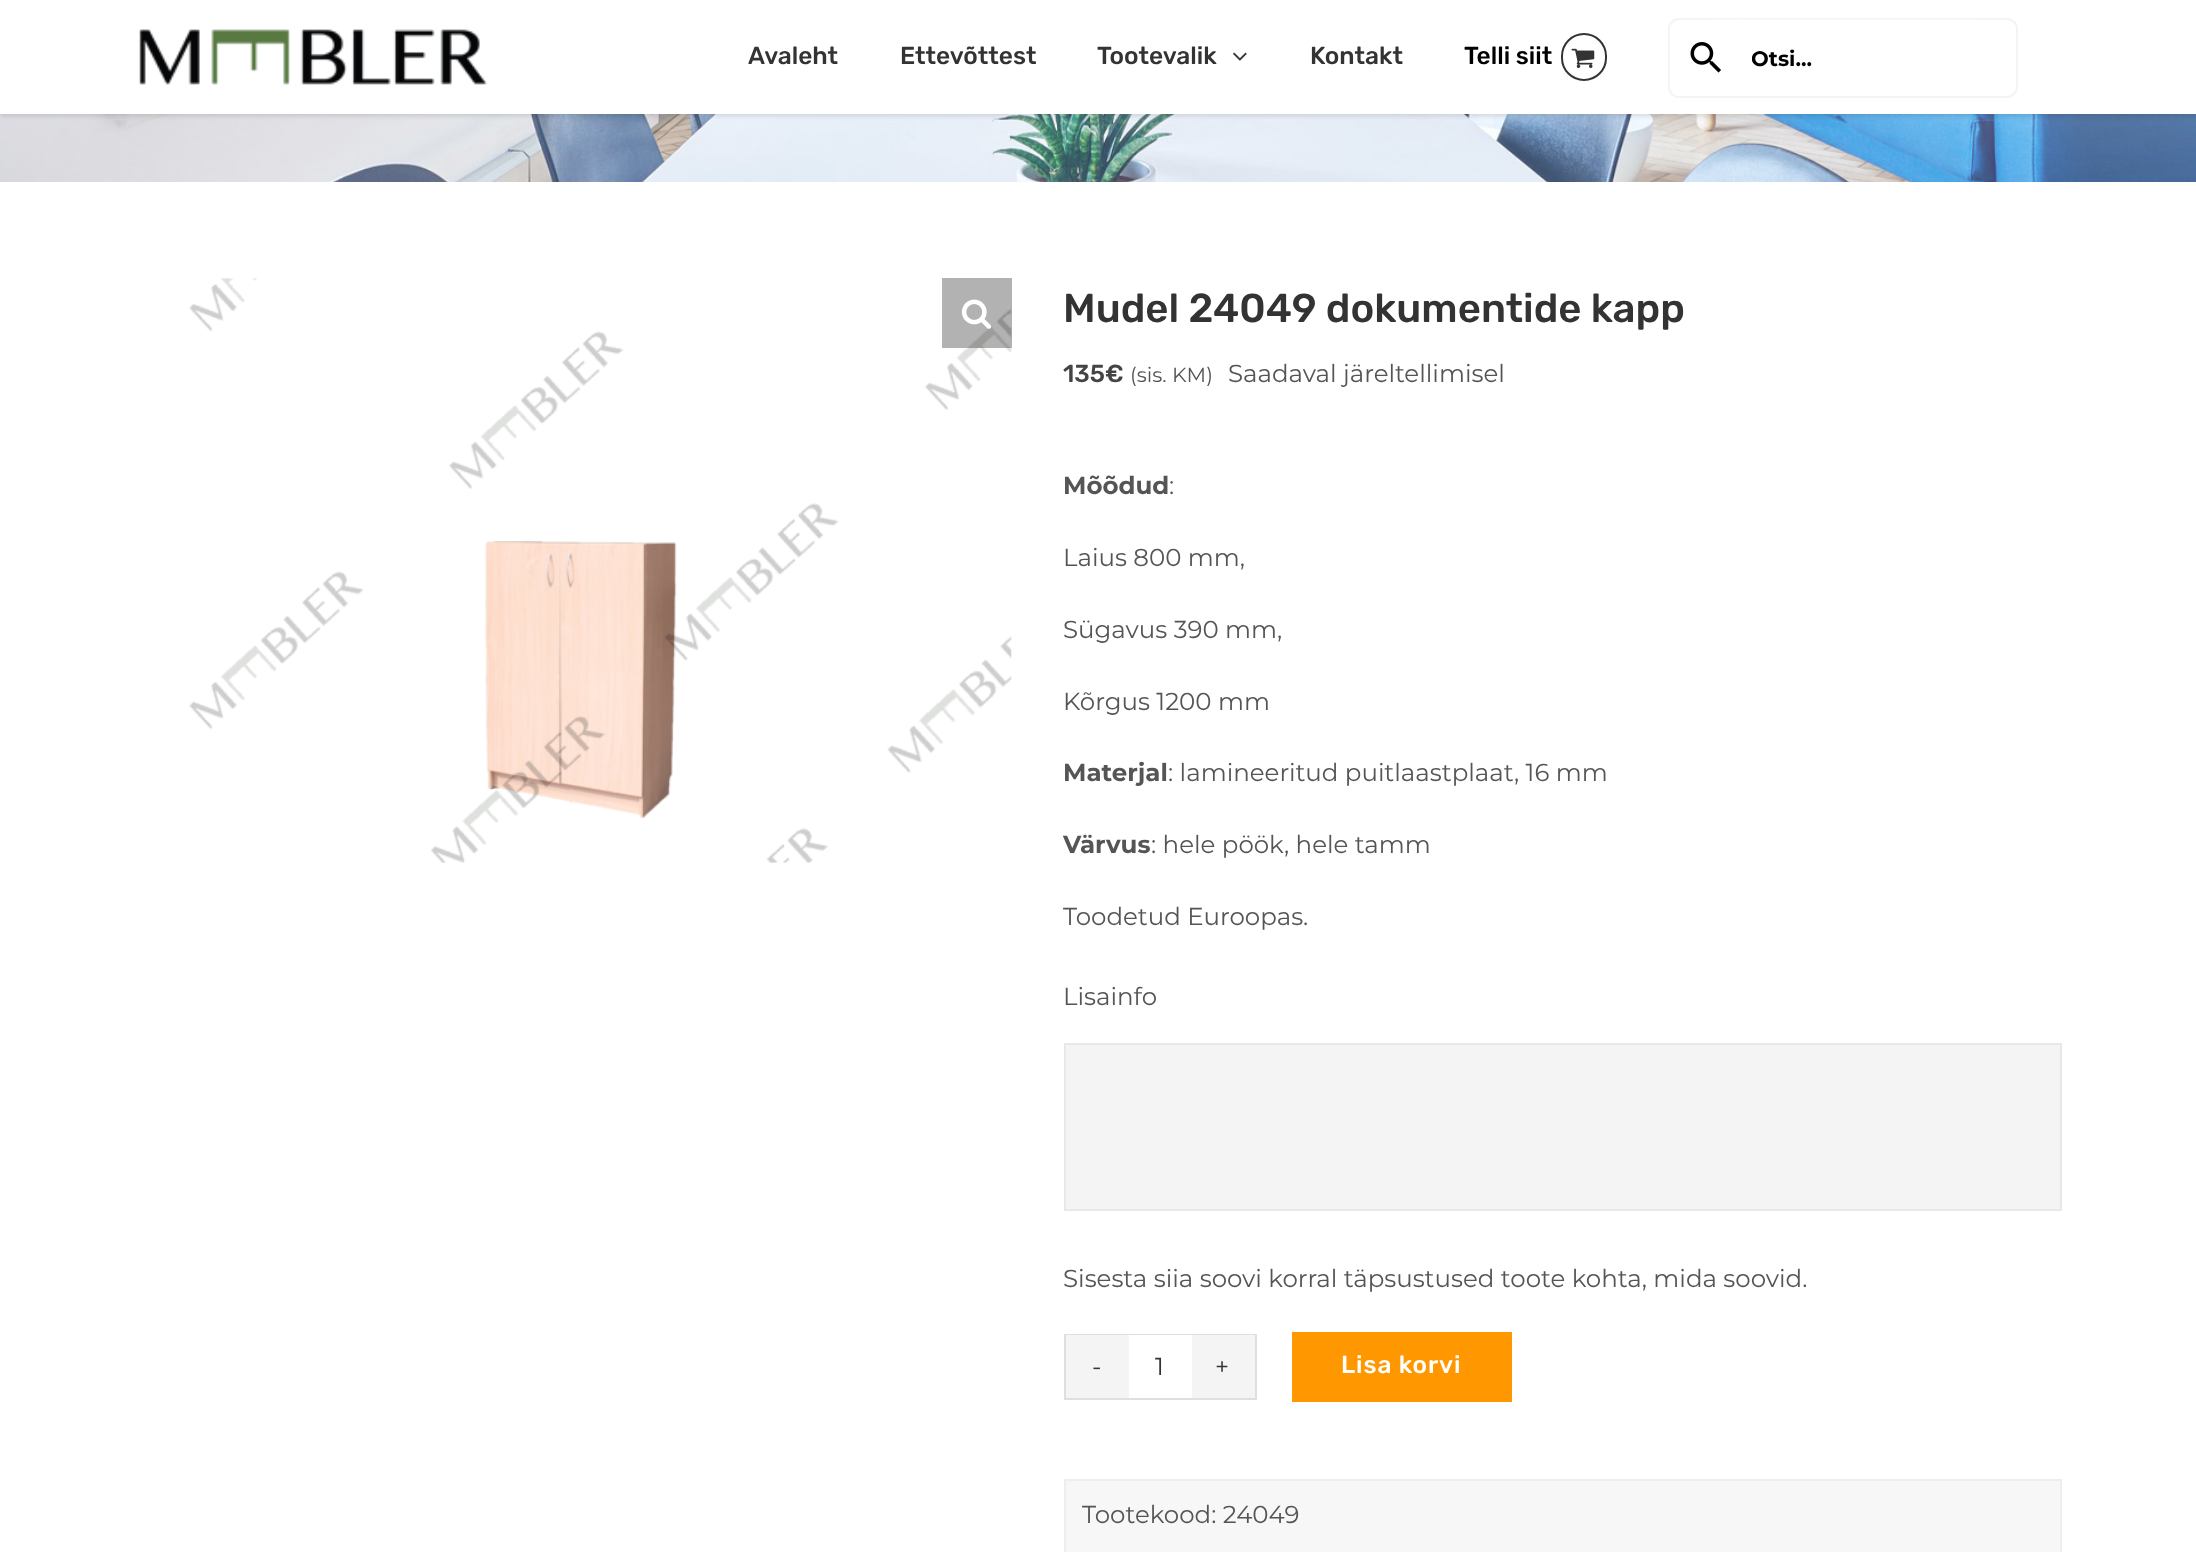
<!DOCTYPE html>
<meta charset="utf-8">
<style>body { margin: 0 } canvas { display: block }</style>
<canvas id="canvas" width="2196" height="1552"></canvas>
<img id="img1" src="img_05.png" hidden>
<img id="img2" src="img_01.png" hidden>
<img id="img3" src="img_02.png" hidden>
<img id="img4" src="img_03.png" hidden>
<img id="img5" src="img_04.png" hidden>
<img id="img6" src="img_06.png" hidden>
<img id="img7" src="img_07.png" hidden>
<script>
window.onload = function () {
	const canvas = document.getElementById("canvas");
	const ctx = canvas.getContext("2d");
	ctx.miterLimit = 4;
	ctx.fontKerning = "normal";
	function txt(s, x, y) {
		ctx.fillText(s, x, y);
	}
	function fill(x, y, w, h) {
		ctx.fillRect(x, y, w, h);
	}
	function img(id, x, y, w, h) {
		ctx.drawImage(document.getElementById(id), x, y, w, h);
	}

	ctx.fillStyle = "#FFFFFF";
	fill(0, 0, 2196, 1552);
	img("img1", 0, 114, 2196, 68);
	ctx.fillStyle = "rgba(0, 0, 0, 0.12)";
	ctx.filter = "blur(2.5px)";
	ctx.beginPath();
	ctx.rect(0, 2, 2196, 114);
	ctx.fill();
	ctx.filter = "none";
	ctx.fillStyle = "#FFFFFF";
	fill(0, 0, 2196, 114);
	img("img2", 139, 29, 348, 56);
	img("img3", 1233, 52, 14, 9);
	ctx.beginPath();
	ctx.roundRect(1562, 34, 44, 46, 22);
	ctx.strokeStyle = "#333333";
	ctx.lineWidth = 2;
	ctx.stroke();
	img("img4", 1571, 48, 24, 20);
	ctx.beginPath();
	ctx.roundRect(1669, 19, 348, 78, 10);
	ctx.strokeStyle = "#F4F4F4";
	ctx.stroke();
	ctx.fillStyle = "rgba(255, 255, 255, 0.41)";
	ctx.beginPath();
	ctx.roundRect(1670, 19, 73, 77, [38.5, 0, 0, 38.5]);
	ctx.fill();
	img("img5", 1690, 42, 31, 31);
	ctx.beginPath();
	ctx.roundRect(1741, 19, 275, 77, [0, 38.5, 38.5, 0]);
	ctx.fill();
	img("img6", 189, 278, 823, 585);
	ctx.fillStyle = "rgba(0, 0, 0, 0.3)";
	fill(942, 278, 70, 70);
	img("img7", 961, 299, 31, 30);
	ctx.fillStyle = "#F4F4F4";
	ctx.beginPath();
	ctx.rect(1065, 1044, 996, 166);
	ctx.fill();
	ctx.strokeStyle = "#E8E8E8";
	ctx.stroke();
	ctx.strokeStyle = "#E0DEDE";
	ctx.strokeRect(1065, 1335, 191, 64);
	fill(1066, 1335, 63, 63);
	ctx.fillStyle = "#FFFFFF";
	fill(1129, 1335, 63, 1);
	ctx.fillStyle = "#F4F4F4";
	fill(1192, 1335, 63, 63);
	ctx.fillStyle = "#FF9800";
	fill(1292, 1332, 220, 70);
	ctx.fillStyle = "#F7F7F7";
	ctx.beginPath();
	ctx.rect(1065, 1480, 996, 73);
	ctx.fill();
	ctx.strokeStyle = "#EEEEEE";
	ctx.stroke();
	ctx.font = "300 24.5px Rubik";
	ctx.fillStyle = "#333333";
	txt("Avaleht", 748, 64);
	txt("Ettevõttest", 900, 64);
	txt("Tootevalik", 1097, 64);
	txt("Kontakt", 1310, 64);
	ctx.fillStyle = "#000000";
	txt("Telli siit", 1464, 64);
	ctx.save();
	ctx.beginPath();
	ctx.rect(1752, 46, 194, 26);
	ctx.clip();
	ctx.font = "bold 21px Montserrat";
	txt("Otsi...", 1751, 66);
	ctx.restore();
	ctx.font = "300 40.25px Rubik";
	ctx.fillStyle = "#333333";
	txt("Mudel 24049 dokumentide kapp", 1063, 322);
	ctx.font = "300 24.5px Rubik";
	ctx.fillStyle = "#444444";
	txt("135€", 1063, 382);
	ctx.font = "20.5px Montserrat";
	ctx.fillStyle = "#555555";
	txt("(sis. KM)", 1130, 382);
	ctx.font = "24.5px Montserrat";
	txt("Saadaval järeltellimisel", 1228, 382);
	ctx.font = "bold 24.5px Montserrat";
	txt("Mõõdud", 1063, 494);
	ctx.font = "24.5px Montserrat";
	txt(":", 1169, 494);
	txt("Laius 800 mm,", 1063, 566);
	txt("Sügavus 390 mm,", 1063, 638);
	txt("Kõrgus 1200 mm", 1063, 710);
	ctx.font = "bold 24.5px Montserrat";
	txt("Materjal", 1063, 781);
	ctx.font = "24.5px Montserrat";
	txt(": lamineeritud puitlaastplaat, 16 mm", 1168, 781);
	ctx.font = "bold 24.5px Montserrat";
	txt("Värvus", 1063, 853);
	ctx.font = "24.5px Montserrat";
	txt(": hele pöök, hele tamm", 1151, 853);
	txt("Toodetud Euroopas.", 1063, 925);
	txt("Lisainfo", 1063, 1005);
	txt("Sisesta siia soovi korral täpsustused toote kohta, mida soovid.", 1063, 1287);
	ctx.fillStyle = "#333333";
	txt("-", 1092, 1375);
	txt("1", 1155, 1375);
	txt("+", 1215, 1375);
	ctx.letterSpacing = "0.9px";
	ctx.font = "300 24.5px Rubik";
	ctx.fillStyle = "#FFFFFF";
	txt("Lisa korvi", 1341, 1373);
	ctx.letterSpacing = "0px";
	ctx.font = "24.5px Montserrat";
	ctx.fillStyle = "#555555";
	txt("Tootekood: 24049", 1082, 1523);
};
</script>
